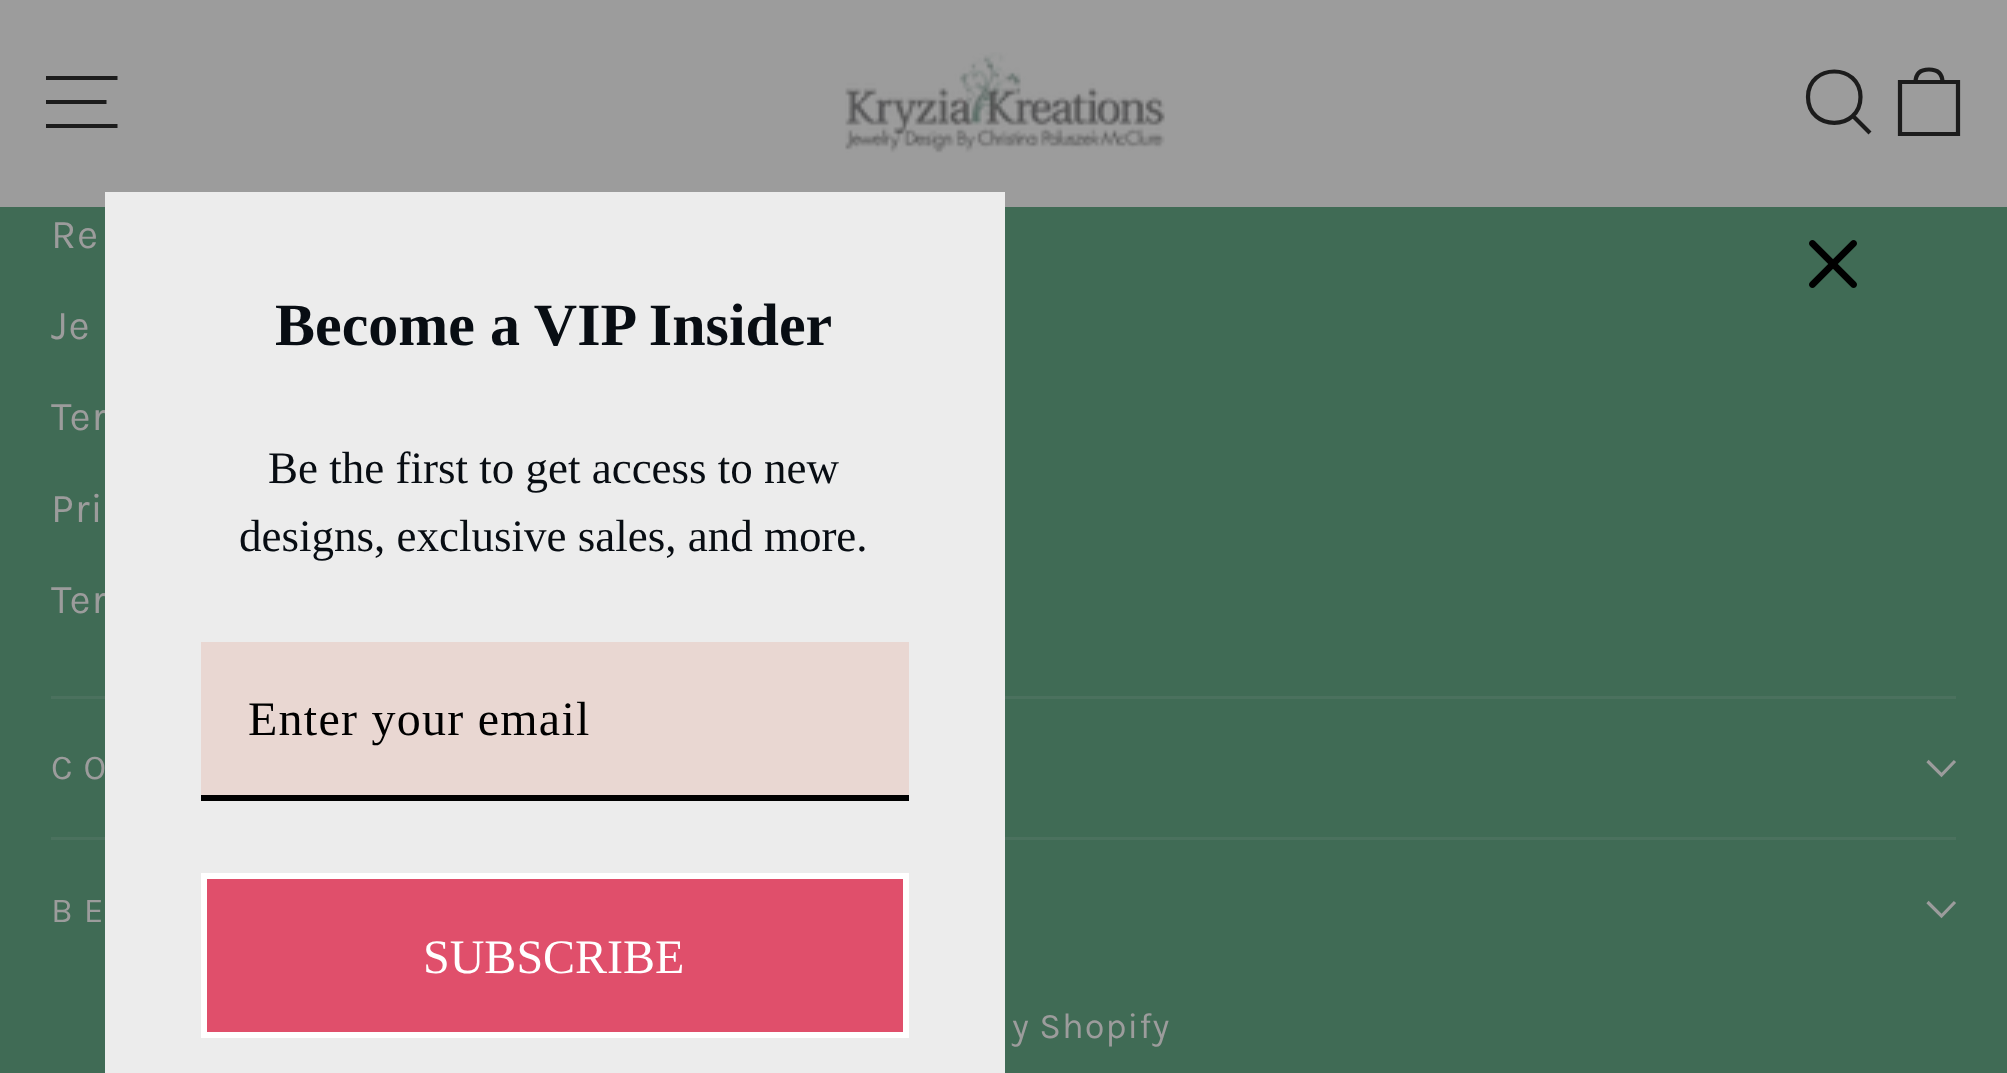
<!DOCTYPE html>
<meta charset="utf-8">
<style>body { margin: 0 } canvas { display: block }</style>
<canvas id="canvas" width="2007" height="1073"></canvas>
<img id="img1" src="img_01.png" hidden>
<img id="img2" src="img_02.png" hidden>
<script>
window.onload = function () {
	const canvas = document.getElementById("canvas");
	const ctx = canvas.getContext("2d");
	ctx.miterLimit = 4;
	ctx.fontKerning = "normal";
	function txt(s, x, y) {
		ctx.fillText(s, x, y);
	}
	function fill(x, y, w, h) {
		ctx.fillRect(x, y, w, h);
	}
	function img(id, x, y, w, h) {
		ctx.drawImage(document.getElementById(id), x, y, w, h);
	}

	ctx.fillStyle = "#406B55";
	fill(0, 0, 2007, 1073);
	ctx.fillStyle = "#9C9C9C";
	fill(0, 0, 2007, 207);
	ctx.beginPath();
	ctx.moveTo(46, 78);
	ctx.lineTo(117.5, 78);
	ctx.moveTo(46, 102);
	ctx.lineTo(106.5, 102);
	ctx.moveTo(46, 126);
	ctx.lineTo(117.5, 126);
	ctx.strokeStyle = "#1C1C1C";
	ctx.lineWidth = 4.2;
	ctx.stroke();
	img("img1", 845, 52, 320, 101);
	ctx.beginPath();
	ctx.moveTo(1860.5, 97);
	ctx.bezierCurveTo(1860.5, 131.5, 1808, 131.5, 1808, 97);
	ctx.bezierCurveTo(1808, 63, 1860.5, 63, 1860.5, 97);
	ctx.closePath();
	ctx.moveTo(1870, 133);
	ctx.lineTo(1853, 116);
	ctx.stroke();
	ctx.beginPath();
	ctx.moveTo(1900, 82);
	ctx.lineTo(1958, 82);
	ctx.lineTo(1958, 134);
	ctx.lineTo(1900, 134);
	ctx.closePath();
	ctx.stroke();
	ctx.beginPath();
	ctx.moveTo(1915.5, 82.5);
	ctx.bezierCurveTo(1915.5, 72.5, 1921.5, 69.5, 1929, 69.5);
	ctx.bezierCurveTo(1936.5, 69.5, 1942.5, 72.5, 1942.5, 82.5);
	ctx.stroke();
	ctx.fillStyle = "#4B715E";
	fill(51, 696, 1905, 3);
	ctx.beginPath();
	ctx.moveTo(1927.5, 761);
	ctx.lineTo(1941.5, 775);
	ctx.lineTo(1955, 761);
	ctx.strokeStyle = "#9C9C9C";
	ctx.lineWidth = 3.2;
	ctx.stroke();
	fill(51, 837, 1905, 3);
	ctx.beginPath();
	ctx.moveTo(1927.5, 902);
	ctx.lineTo(1941.5, 916);
	ctx.lineTo(1955, 902);
	ctx.stroke();
	img("img2", 1809, 240, 48, 48);
	ctx.letterSpacing = "1px";
	ctx.font = "41px Karla";
	ctx.fillStyle = "#9C9C9C";
	txt("Re", 51, 248);
	txt("Je", 51, 339);
	txt("Ter", 51, 430);
	txt("Pri", 51, 522);
	txt("Ter", 51, 613);
	ctx.letterSpacing = "11px";
	ctx.font = "35px Karla";
	txt("CO", 51, 779);
	txt("BE", 51, 922);
	ctx.letterSpacing = "1px";
	ctx.font = "36px Karla";
	txt("y Shopify", 1012, 1038);
	ctx.fillStyle = "#ECECEC";
	fill(105, 192, 900, 881);
	ctx.letterSpacing = "0px";
	ctx.font = "bold 60px Liberation Serif";
	ctx.fillStyle = "#080D13";
	txt("Become a VIP Insider", 275, 345);
	ctx.font = "45px Liberation Serif";
	txt("Be the first to get access to new", 268, 483);
	txt("designs, exclusive sales, and more.", 239, 551);
	ctx.fillStyle = "#E9D7D2";
	fill(201, 642, 708, 153);
	ctx.fillStyle = "#000000";
	fill(201, 795, 708, 6);
	ctx.letterSpacing = "1.25px";
	ctx.font = "48px Liberation Serif";
	txt("Enter your email", 248, 735);
	ctx.fillStyle = "#E04F6B";
	ctx.beginPath();
	ctx.rect(204, 876, 702, 159);
	ctx.fill();
	ctx.strokeStyle = "#FFFFFF";
	ctx.lineWidth = 6;
	ctx.stroke();
	ctx.letterSpacing = "0px";
	ctx.fillStyle = "#FFFFFF";
	txt("SUBSCRIBE", 423, 973);
};
</script>
